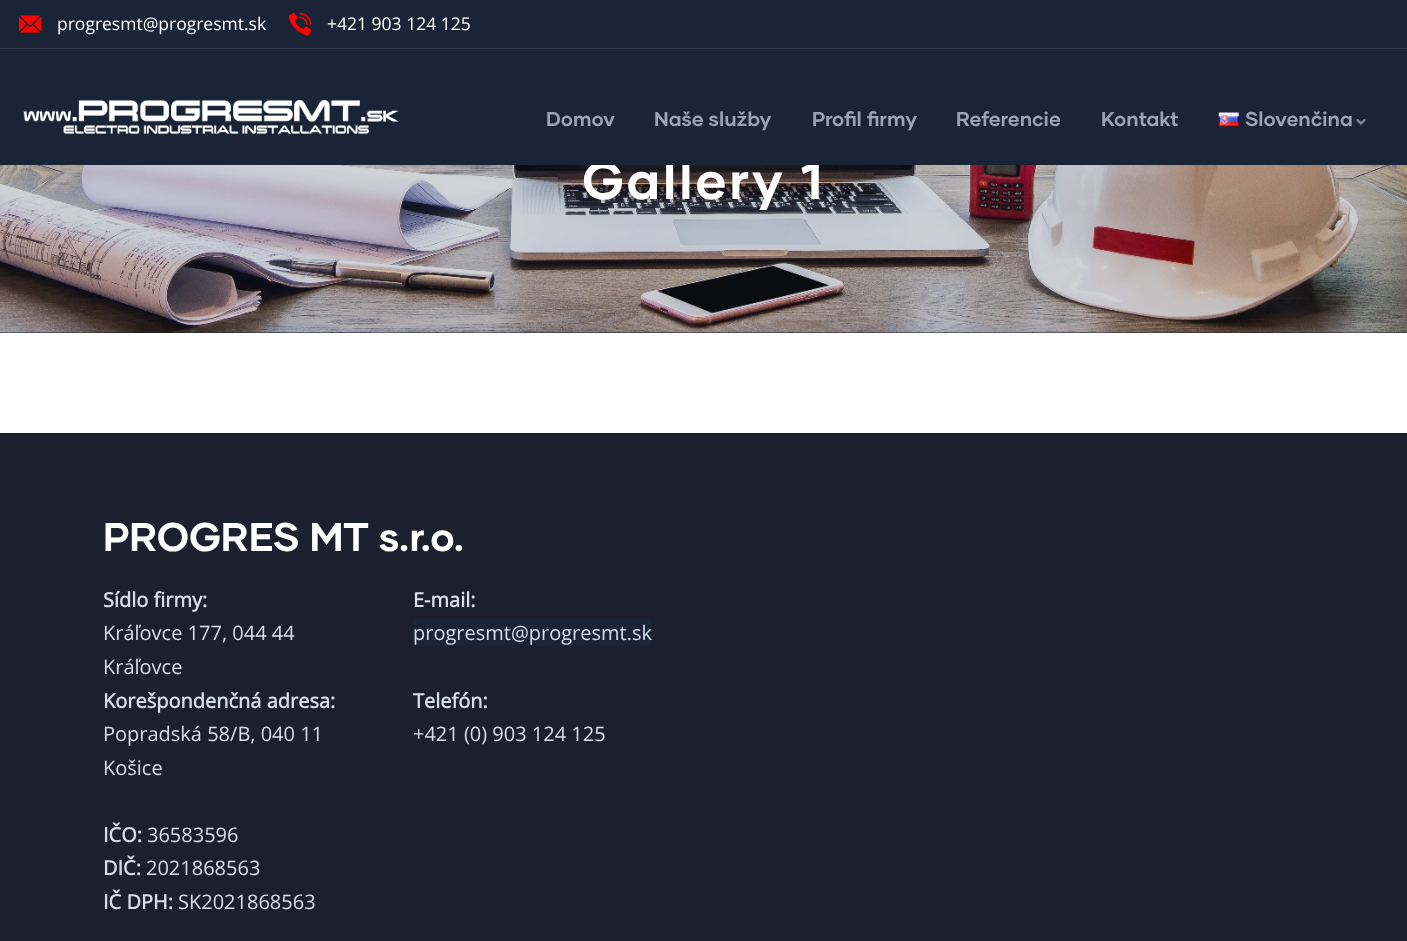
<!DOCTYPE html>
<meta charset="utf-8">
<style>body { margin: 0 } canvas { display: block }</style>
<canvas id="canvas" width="1407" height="941"></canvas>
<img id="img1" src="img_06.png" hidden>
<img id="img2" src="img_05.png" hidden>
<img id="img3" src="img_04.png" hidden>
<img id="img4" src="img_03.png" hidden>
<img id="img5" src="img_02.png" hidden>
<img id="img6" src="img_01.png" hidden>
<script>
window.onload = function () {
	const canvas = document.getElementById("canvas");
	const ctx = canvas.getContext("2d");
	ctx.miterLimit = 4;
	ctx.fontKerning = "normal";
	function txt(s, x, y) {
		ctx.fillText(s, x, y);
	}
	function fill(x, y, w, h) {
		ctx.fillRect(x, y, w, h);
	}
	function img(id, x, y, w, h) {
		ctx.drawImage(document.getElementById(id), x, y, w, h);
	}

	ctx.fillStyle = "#FFFFFF";
	fill(0, 0, 1407, 941);
	ctx.fillStyle = "#1B2030";
	fill(0, 332, 1407, 1);
	img("img1", 0, 165, 1407, 168);
	ctx.fillStyle = "#1B1F2E";
	fill(0, 433, 1407, 508);
	ctx.fillStyle = "#192437";
	fill(413, 619, 238, 27);
	ctx.letterSpacing = "2.5px";
	ctx.font = "bold 52.5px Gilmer";
	ctx.fillStyle = "#FFFFFF";
	txt("Gallery 1", 582, 199);
	ctx.fillStyle = "#192437";
	fill(0, 0, 1407, 165);
	img("img2", 1356, 118, 10, 7);
	ctx.letterSpacing = "0px";
	ctx.font = "bold 20px Gilmer";
	ctx.fillStyle = "#9AA3B2";
	txt("Slovenčina", 1245, 126);
	img("img3", 1218, 112, 21, 15);
	txt("Kontakt", 1101, 126);
	txt("Referencie", 956, 126);
	txt("Profil firmy", 812, 126);
	txt("Naše služby", 654, 126);
	txt("Domov", 546, 126);
	img("img4", 23, 100, 376, 34);
	img("img5", 288, 13, 24, 22);
	ctx.font = "17.5px Open Sans";
	ctx.fillStyle = "#FFFFFF";
	txt("+421 903 124 125", 327, 30);
	img("img6", 19, 15, 23, 18);
	txt("progresmt@progresmt.sk", 57, 30);
	ctx.fillStyle = "#303A4B";
	fill(0, 48, 1407, 1);
	ctx.font = "bold 40px Gilmer";
	ctx.fillStyle = "#FFFFFF";
	txt("PROGRES MT s.r.o.", 103, 551);
	ctx.font = "bold 20px Open Sans";
	ctx.fillStyle = "#D6DEEB";
	txt("Sídlo firmy:", 103, 607);
	ctx.font = "20px Open Sans";
	txt("Kráľovce 177, 044 44", 103, 640);
	txt("Kráľovce", 103, 674);
	ctx.font = "bold 20px Open Sans";
	txt("Korešpondenčná adresa:", 103, 708);
	ctx.font = "20px Open Sans";
	txt("Popradská 58/B, 040 11", 103, 741);
	txt("Košice", 103, 775);
	ctx.font = "bold 20px Open Sans";
	txt("IČO:", 103, 842);
	ctx.font = "20px Open Sans";
	txt("36583596", 147, 842);
	ctx.font = "bold 20px Open Sans";
	txt("DIČ:", 103, 875);
	ctx.font = "20px Open Sans";
	txt("2021868563", 146, 875);
	ctx.font = "bold 20px Open Sans";
	txt("IČ DPH:", 103, 909);
	ctx.font = "20px Open Sans";
	txt("SK2021868563", 178, 909);
	ctx.font = "bold 20px Open Sans";
	txt("E-mail:", 413, 607);
	ctx.font = "20px Open Sans";
	txt("progresmt@progresmt.sk", 413, 640);
	ctx.font = "bold 20px Open Sans";
	txt("Telefón:", 413, 708);
	ctx.font = "20px Open Sans";
	txt("+421 (0) 903 124 125", 413, 741);
};
</script>
